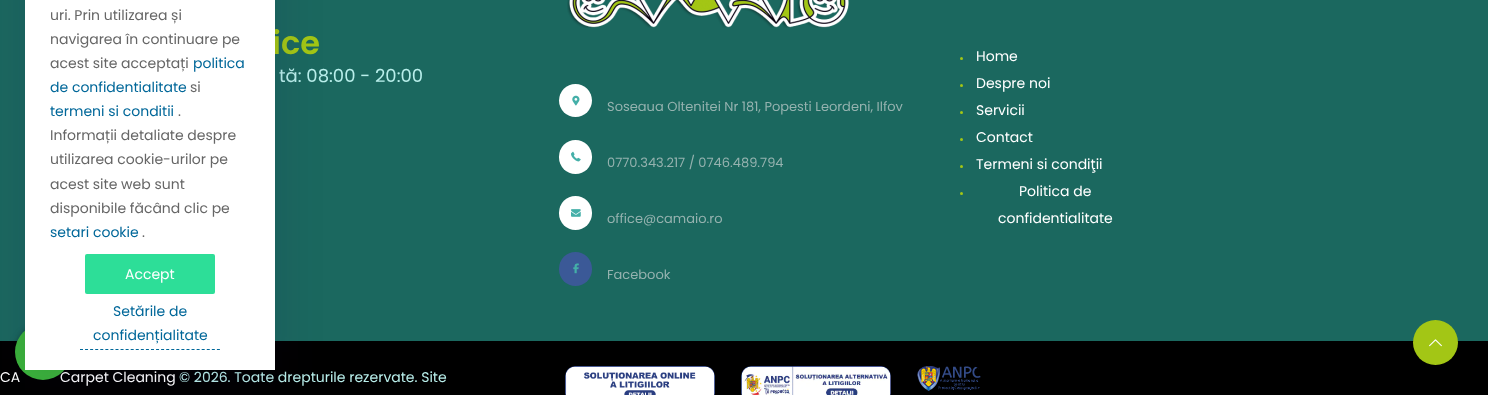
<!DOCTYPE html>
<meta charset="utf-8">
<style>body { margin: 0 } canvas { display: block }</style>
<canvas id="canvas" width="1488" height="395"></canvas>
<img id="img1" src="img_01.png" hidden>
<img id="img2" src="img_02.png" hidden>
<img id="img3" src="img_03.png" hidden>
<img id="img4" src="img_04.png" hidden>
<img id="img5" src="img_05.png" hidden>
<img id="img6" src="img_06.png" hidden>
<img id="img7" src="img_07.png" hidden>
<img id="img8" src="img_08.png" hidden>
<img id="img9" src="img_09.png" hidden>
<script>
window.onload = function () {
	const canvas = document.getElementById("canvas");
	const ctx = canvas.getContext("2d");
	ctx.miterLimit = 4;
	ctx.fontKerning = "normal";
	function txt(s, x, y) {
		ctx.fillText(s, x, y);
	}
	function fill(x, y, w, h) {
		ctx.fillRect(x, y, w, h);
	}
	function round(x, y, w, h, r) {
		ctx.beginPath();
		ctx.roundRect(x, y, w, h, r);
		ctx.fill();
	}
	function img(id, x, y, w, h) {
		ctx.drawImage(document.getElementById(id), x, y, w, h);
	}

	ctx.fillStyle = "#1B685F";
	fill(0, 0, 1488, 395);
	img("img1", 567, 0, 282, 28);
	ctx.fillStyle = "#FFFFFF";
	ctx.beginPath();
	ctx.arc(575.5, 100.5, 16.5, 0, Math.PI * 2);
	ctx.fill();
	img("img2", 572, 95, 8, 11);
	round(559, 140, 33, 34, 16.5);
	img("img3", 571, 151, 10, 11);
	round(559, 196, 33, 34, 16.5);
	img("img4", 571, 209, 10, 8);
	ctx.fillStyle = "#3B5997";
	round(559, 252, 33, 34, 16.5);
	img("img5", 573, 263, 6, 11);
	ctx.fillStyle = "#A3C615";
	ctx.beginPath();
	ctx.arc(961.5, 58.5, 1.5, 0, Math.PI * 2);
	ctx.fill();
	ctx.beginPath();
	ctx.arc(961.5, 85.5, 1.5, 0, Math.PI * 2);
	ctx.fill();
	ctx.beginPath();
	ctx.arc(961.5, 112.5, 1.5, 0, Math.PI * 2);
	ctx.fill();
	ctx.beginPath();
	ctx.arc(961.5, 139.5, 1.5, 0, Math.PI * 2);
	ctx.fill();
	ctx.beginPath();
	ctx.arc(961.5, 166.5, 1.5, 0, Math.PI * 2);
	ctx.fill();
	ctx.beginPath();
	ctx.arc(961.5, 193.5, 1.5, 0, Math.PI * 2);
	ctx.fill();
	ctx.fillStyle = "#000000";
	fill(0, 341, 1488, 54);
	img("img6", 565, 366, 150, 29);
	img("img7", 741, 366, 150, 29);
	img("img8", 917, 366, 64, 25);
	ctx.fillStyle = "rgba(0, 0, 0, 0.28)";
	ctx.filter = "blur(4px)";
	ctx.beginPath();
	ctx.roundRect(15, 328, 56, 56, 28);
	ctx.fill();
	ctx.filter = "none";
	ctx.fillStyle = "rgba(0, 0, 0, 0.14)";
	ctx.filter = "blur(2px)";
	ctx.beginPath();
	ctx.roundRect(15, 324, 56, 56, 28);
	ctx.fill();
	ctx.filter = "none";
	ctx.fillStyle = "#A3C615";
	ctx.beginPath();
	ctx.arc(1435.5, 342.5, 22.5, 0, Math.PI * 2);
	ctx.fill();
	img("img9", 1429, 339, 13, 8);
	ctx.font = "600 32px Poppins";
	txt("ice", 272, 54);
	ctx.font = "18px Poppins";
	ctx.fillStyle = "#B9EFEB";
	txt("tă: 08:00 - 20:00", 279, 82);
	ctx.font = "13px Poppins";
	ctx.fillStyle = "#95B2AF";
	txt("Soseaua Oltenitei Nr 181, Popesti Leordeni, Ilfov", 607, 111);
	txt("0770.343.217 / 0746.489.794", 607, 167);
	txt("office@camaio.ro", 607, 223);
	txt("Facebook", 607, 279);
	ctx.font = "14px Poppins";
	ctx.fillStyle = "#FFFFFF";
	txt("Home", 976, 61);
	txt("Despre noi", 976, 88);
	txt("Servicii", 976, 115);
	txt("Contact", 976, 142);
	txt("Termeni si condiţii", 976, 169);
	txt("Politica de", 1019, 196);
	txt("confidentialitate", 998, 223);
	txt("CA", 0, 382);
	txt("Carpet Cleaning", 60, 382);
	ctx.fillStyle = "#B9EFEB";
	txt("© 2026. Toate drepturile rezervate. Site", 179, 382);
	ctx.fillStyle = "#3BB33B";
	ctx.beginPath();
	ctx.arc(43, 352, 28, 0, Math.PI * 2);
	ctx.fill();
	ctx.fillStyle = "rgba(24, 5, 72, 0.12)";
	ctx.filter = "blur(24.5px)";
	ctx.beginPath();
	ctx.rect(25, -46, 250, 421);
	ctx.fill();
	ctx.filter = "none";
	ctx.fillStyle = "#FFFFFF";
	fill(25, 0, 250, 370);
	ctx.fillStyle = "#006799";
	txt("confidențialitate", 93, 340);
	txt("Setările de", 113, 316);
	ctx.beginPath();
	ctx.moveTo(80, 349.5);
	ctx.lineTo(220, 349.5);
	ctx.strokeStyle = "#006799";
	ctx.setLineDash([3, 2.07]);
	ctx.stroke();
	ctx.fillStyle = "#2DDE98";
	round(85, 254, 130, 40, 2);
	ctx.fillStyle = "#FFFFFF";
	txt("Accept", 125, 279);
	ctx.fillStyle = "#666666";
	txt(".", 142, 237);
	ctx.fillStyle = "#006799";
	txt("setari cookie", 50, 237);
	ctx.fillStyle = "#666666";
	txt("disponibile făcând clic pe", 50, 213);
	txt("acest site web sunt", 50, 189);
	txt("utilizarea cookie-urilor pe", 50, 164);
	txt("Informații detaliate despre", 50, 140);
	txt(".", 178, 116);
	ctx.fillStyle = "#006799";
	txt("termeni si conditii", 50, 116);
	ctx.fillStyle = "#666666";
	txt("si", 190, 92);
	ctx.fillStyle = "#006799";
	txt("de confidentialitate", 50, 92);
	txt("politica", 193, 68);
	ctx.fillStyle = "#666666";
	txt("acest site acceptați", 50, 68);
	txt("navigarea în continuare pe", 50, 44);
	txt("uri. Prin utilizarea și", 50, 20);
};
</script>
